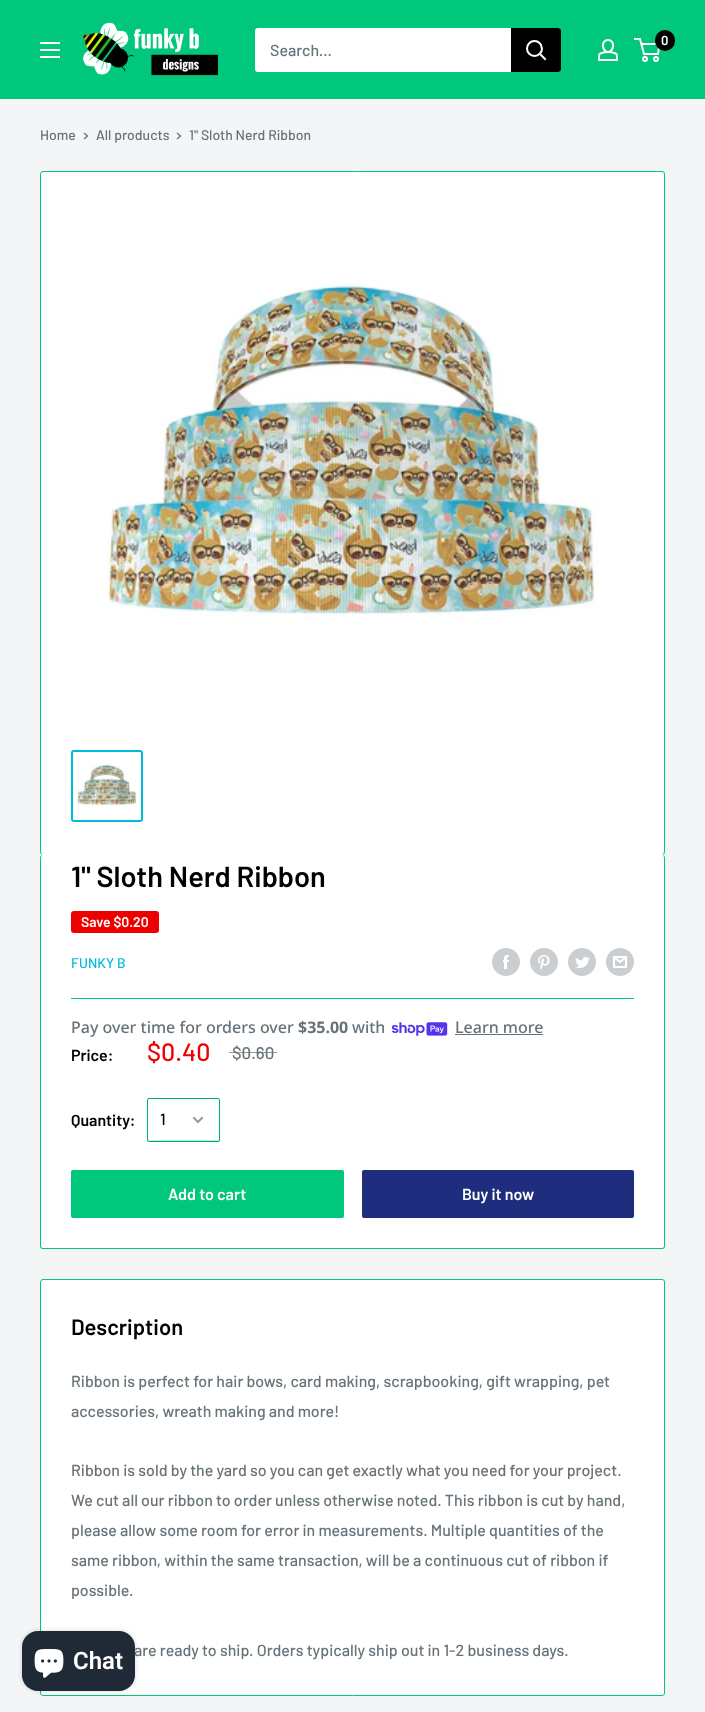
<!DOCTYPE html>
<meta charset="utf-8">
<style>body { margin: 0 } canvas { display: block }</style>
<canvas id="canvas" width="705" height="1712"></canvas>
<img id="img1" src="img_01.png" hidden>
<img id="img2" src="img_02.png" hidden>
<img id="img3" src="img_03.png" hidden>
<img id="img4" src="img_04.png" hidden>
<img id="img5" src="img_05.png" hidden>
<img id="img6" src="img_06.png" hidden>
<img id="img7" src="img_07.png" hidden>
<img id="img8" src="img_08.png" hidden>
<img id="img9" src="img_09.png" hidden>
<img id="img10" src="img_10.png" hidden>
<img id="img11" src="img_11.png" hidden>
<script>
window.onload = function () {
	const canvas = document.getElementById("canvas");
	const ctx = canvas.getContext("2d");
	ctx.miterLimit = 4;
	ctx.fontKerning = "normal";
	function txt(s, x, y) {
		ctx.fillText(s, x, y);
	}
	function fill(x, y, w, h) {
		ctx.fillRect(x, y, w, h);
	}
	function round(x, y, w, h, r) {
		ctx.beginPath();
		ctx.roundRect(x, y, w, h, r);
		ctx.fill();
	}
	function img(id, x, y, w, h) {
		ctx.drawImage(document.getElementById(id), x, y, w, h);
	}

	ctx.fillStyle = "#F3F5F6";
	fill(0, 0, 705, 1712);
	ctx.fillStyle = "#00C77B";
	fill(0, 0, 705, 99);
	img("img1", 83, 22, 136, 54);
	img("img2", 598, 39, 20, 22);
	ctx.beginPath();
	ctx.arc(645, 59, 2, 0, Math.PI * 2);
	ctx.strokeStyle = "#FFFFFF";
	ctx.lineWidth = 2;
	ctx.stroke();
	ctx.beginPath();
	ctx.arc(656, 59, 2, 0, Math.PI * 2);
	ctx.stroke();
	ctx.beginPath();
	ctx.moveTo(641.5, 44);
	ctx.lineTo(659.5, 44);
	ctx.lineTo(658, 54);
	ctx.lineTo(644, 54);
	ctx.lineTo(640, 39);
	ctx.lineTo(634, 39);
	ctx.stroke();
	ctx.fillStyle = "#000000";
	round(655, 30, 20, 21, 10);
	img("img3", 40, 42, 20, 16);
	ctx.fillStyle = "#FFFFFF";
	round(255, 28, 306, 44, 3);
	ctx.fillStyle = "#000000";
	ctx.beginPath();
	ctx.roundRect(511, 28, 50, 44, [0, 3, 3, 0]);
	ctx.fill();
	ctx.beginPath();
	ctx.moveTo(545, 59);
	ctx.lineTo(540, 54);
	ctx.lineCap = "square";
	ctx.stroke();
	ctx.beginPath();
	ctx.arc(534.5, 48.5, 7.5, 0, Math.PI * 2);
	ctx.stroke();
	ctx.beginPath();
	ctx.moveTo(84.5, 133.5);
	ctx.lineTo(87.5, 136);
	ctx.lineTo(84.5, 138.5);
	ctx.strokeStyle = "#677279";
	ctx.lineWidth = 1.3;
	ctx.stroke();
	ctx.beginPath();
	ctx.moveTo(177.5, 133.5);
	ctx.lineTo(180.5, 136);
	ctx.lineTo(177.5, 138.5);
	ctx.stroke();
	ctx.fillStyle = "#FFFFFF";
	ctx.beginPath();
	ctx.roundRect(40.5, 171.5, 624, 683, 2.5);
	ctx.fill();
	ctx.strokeStyle = "#00C77B";
	ctx.lineWidth = 1;
	ctx.stroke();
	img("img4", 107, 283, 491, 336);
	ctx.beginPath();
	ctx.roundRect(72, 751, 70, 70, 2);
	ctx.strokeStyle = "#00BADB";
	ctx.lineWidth = 2;
	ctx.stroke();
	img("img5", 75, 764, 63, 42);
	ctx.beginPath();
	ctx.moveTo(43, 854);
	ctx.bezierCurveTo(41, 854, 40, 856, 40, 858);
	ctx.bezierCurveTo(40, 856, 41, 855, 43, 855);
	ctx.lineTo(662, 855);
	ctx.bezierCurveTo(664, 855, 665, 856, 665, 858);
	ctx.bezierCurveTo(665, 856, 664, 854, 662, 854);
	ctx.closePath();
	ctx.fill();
	round(40, 855, 625, 394, 3);
	ctx.fillStyle = "#00C77B";
	ctx.beginPath();
	ctx.moveTo(43, 855);
	ctx.lineTo(662, 855);
	ctx.bezierCurveTo(664, 855, 665, 856, 665, 858);
	ctx.lineTo(665, 1246);
	ctx.bezierCurveTo(665, 1248, 664, 1249, 662, 1249);
	ctx.lineTo(43, 1249);
	ctx.bezierCurveTo(41, 1249, 40, 1248, 40, 1246);
	ctx.lineTo(40, 858);
	ctx.bezierCurveTo(40, 856, 41, 855, 43, 855);
	ctx.closePath();
	ctx.moveTo(43, 855);
	ctx.lineTo(662, 855);
	ctx.bezierCurveTo(663, 855, 664, 856, 664, 858);
	ctx.lineTo(664, 1246);
	ctx.bezierCurveTo(664, 1247, 663, 1248, 662, 1248);
	ctx.lineTo(43, 1248);
	ctx.bezierCurveTo(42, 1248, 41, 1247, 41, 1246);
	ctx.lineTo(41, 858);
	ctx.bezierCurveTo(41, 856, 42, 855, 43, 855);
	ctx.closePath();
	ctx.fill("evenodd");
	ctx.fillStyle = "#EE0000";
	round(71, 911, 88, 22, 3);
	img("img6", 492, 948, 28, 28);
	img("img7", 530, 948, 28, 28);
	img("img8", 568, 948, 28, 28);
	img("img9", 606, 948, 28, 28);
	ctx.fillStyle = "#00C77B";
	fill(71, 998, 563, 1);
	img("img10", 391, 1022, 57, 14);
	ctx.fillStyle = "#677279";
	fill(455, 1034, 88, 1);
	ctx.fillStyle = "#B3EED7";
	ctx.beginPath();
	ctx.moveTo(148, 1139);
	ctx.bezierCurveTo(148, 1140, 148, 1141, 149, 1141);
	ctx.lineTo(218, 1141);
	ctx.lineTo(219, 1139);
	ctx.lineTo(218, 1140);
	ctx.lineTo(153, 1140);
	ctx.bezierCurveTo(152, 1140, 149, 1141, 148, 1139);
	ctx.closePath();
	ctx.fill();
	ctx.beginPath();
	ctx.roundRect(147.5, 1098.5, 72, 43, 1.5);
	ctx.strokeStyle = "#00AE6B";
	ctx.lineWidth = 1;
	ctx.stroke();
	ctx.beginPath();
	ctx.moveTo(202, 1118);
	ctx.lineTo(198, 1122);
	ctx.lineTo(194, 1118);
	ctx.strokeStyle = "#959CA1";
	ctx.lineWidth = 2;
	ctx.stroke();
	ctx.fillStyle = "#00C77B";
	round(71, 1170, 273, 48, 2);
	ctx.fillStyle = "#1E2D7D";
	round(362, 1170, 272, 48, 2);
	ctx.fillStyle = "#FFFFFF";
	ctx.beginPath();
	ctx.roundRect(40.5, 1279.5, 624, 416, 2.5);
	ctx.fill();
	ctx.strokeStyle = "#00C77B";
	ctx.lineWidth = 1;
	ctx.stroke();
	ctx.fillStyle = "rgba(0, 0, 0, 0.15)";
	ctx.filter = "blur(2.5px)";
	ctx.beginPath();
	ctx.roundRect(22, 1631, 113, 60, 16);
	ctx.fill();
	ctx.filter = "none";
	ctx.fillStyle = "#202A36";
	round(22, 1631, 113, 60, 16);
	img("img11", 34, 1649, 30, 29);
	ctx.font = "600 13px Barlow";
	ctx.fillStyle = "#FFFFFF";
	txt("0", 661, 45);
	ctx.font = "500 16px Barlow";
	ctx.fillStyle = "#677279";
	txt("Search...", 270, 56);
	ctx.font = "500 14px Barlow";
	txt("Home", 40, 140);
	txt("All products", 96, 140);
	txt("1\" Sloth Nerd Ribbon", 189, 140);
	ctx.font = "600 29px Barlow";
	ctx.fillStyle = "#000000";
	txt("1\" Sloth Nerd Ribbon", 71, 887);
	ctx.font = "600 14px Barlow";
	ctx.fillStyle = "#FFFFFF";
	txt("Save $0.20", 81, 927);
	ctx.font = "500 14px Barlow";
	ctx.fillStyle = "#00BADB";
	txt("FUNKY B", 71, 968);
	ctx.font = "500 16px Noto Sans";
	ctx.fillStyle = "#677279";
	txt("Pay over time for orders over", 71, 1033);
	ctx.font = "bold 16px Noto Sans";
	txt("$35.00", 298, 1033);
	ctx.font = "500 16px Noto Sans";
	txt("with", 352, 1033);
	txt("Learn more", 455, 1033);
	ctx.font = "600 16px Barlow";
	ctx.fillStyle = "#000000";
	txt("Price:", 71, 1061);
	ctx.font = "500 25px Barlow";
	ctx.fillStyle = "#EE0000";
	txt("$0.40", 147, 1061);
	ctx.font = "500 17px Barlow";
	ctx.fillStyle = "#677279";
	txt("$0.60", 232, 1059);
	ctx.fillStyle = "rgba(103, 114, 121, 0.7)";
	fill(229, 1052, 48, 1);
	ctx.font = "600 16px Barlow";
	ctx.fillStyle = "#000000";
	txt("Quantity:", 71, 1126);
	ctx.font = "500 16px Barlow";
	txt("1", 160, 1125);
	ctx.font = "600 16px Barlow";
	ctx.fillStyle = "#FFFFFF";
	txt("Add to cart", 168, 1200);
	txt("Buy it now", 462, 1200);
	ctx.font = "600 22px Barlow";
	ctx.fillStyle = "#000000";
	txt("Description", 71, 1335);
	ctx.font = "500 16px Barlow";
	ctx.fillStyle = "#677279";
	txt("Ribbon is perfect for hair bows, card making, scrapbooking, gift wrapping, pet", 71, 1387);
	txt("accessories, wreath making and more!", 71, 1417);
	txt("Ribbon is sold by the yard so you can get exactly what you need for your project.", 71, 1476);
	txt("We cut all our ribbon to order unless otherwise noted. This ribbon is cut by hand,", 71, 1506);
	txt("please allow some room for error in measurements. Multiple quantities of the", 71, 1536);
	txt("same ribbon, within the same transaction, will be a continuous cut of ribbon if", 71, 1566);
	txt("possible.", 71, 1596);
	txt("are ready to ship. Orders typically ship out in 1-2 business days.", 134, 1656);
	ctx.font = "600 24px Roboto";
	ctx.fillStyle = "#FFFFFF";
	txt("Chat", 73, 1669);
};
</script>
